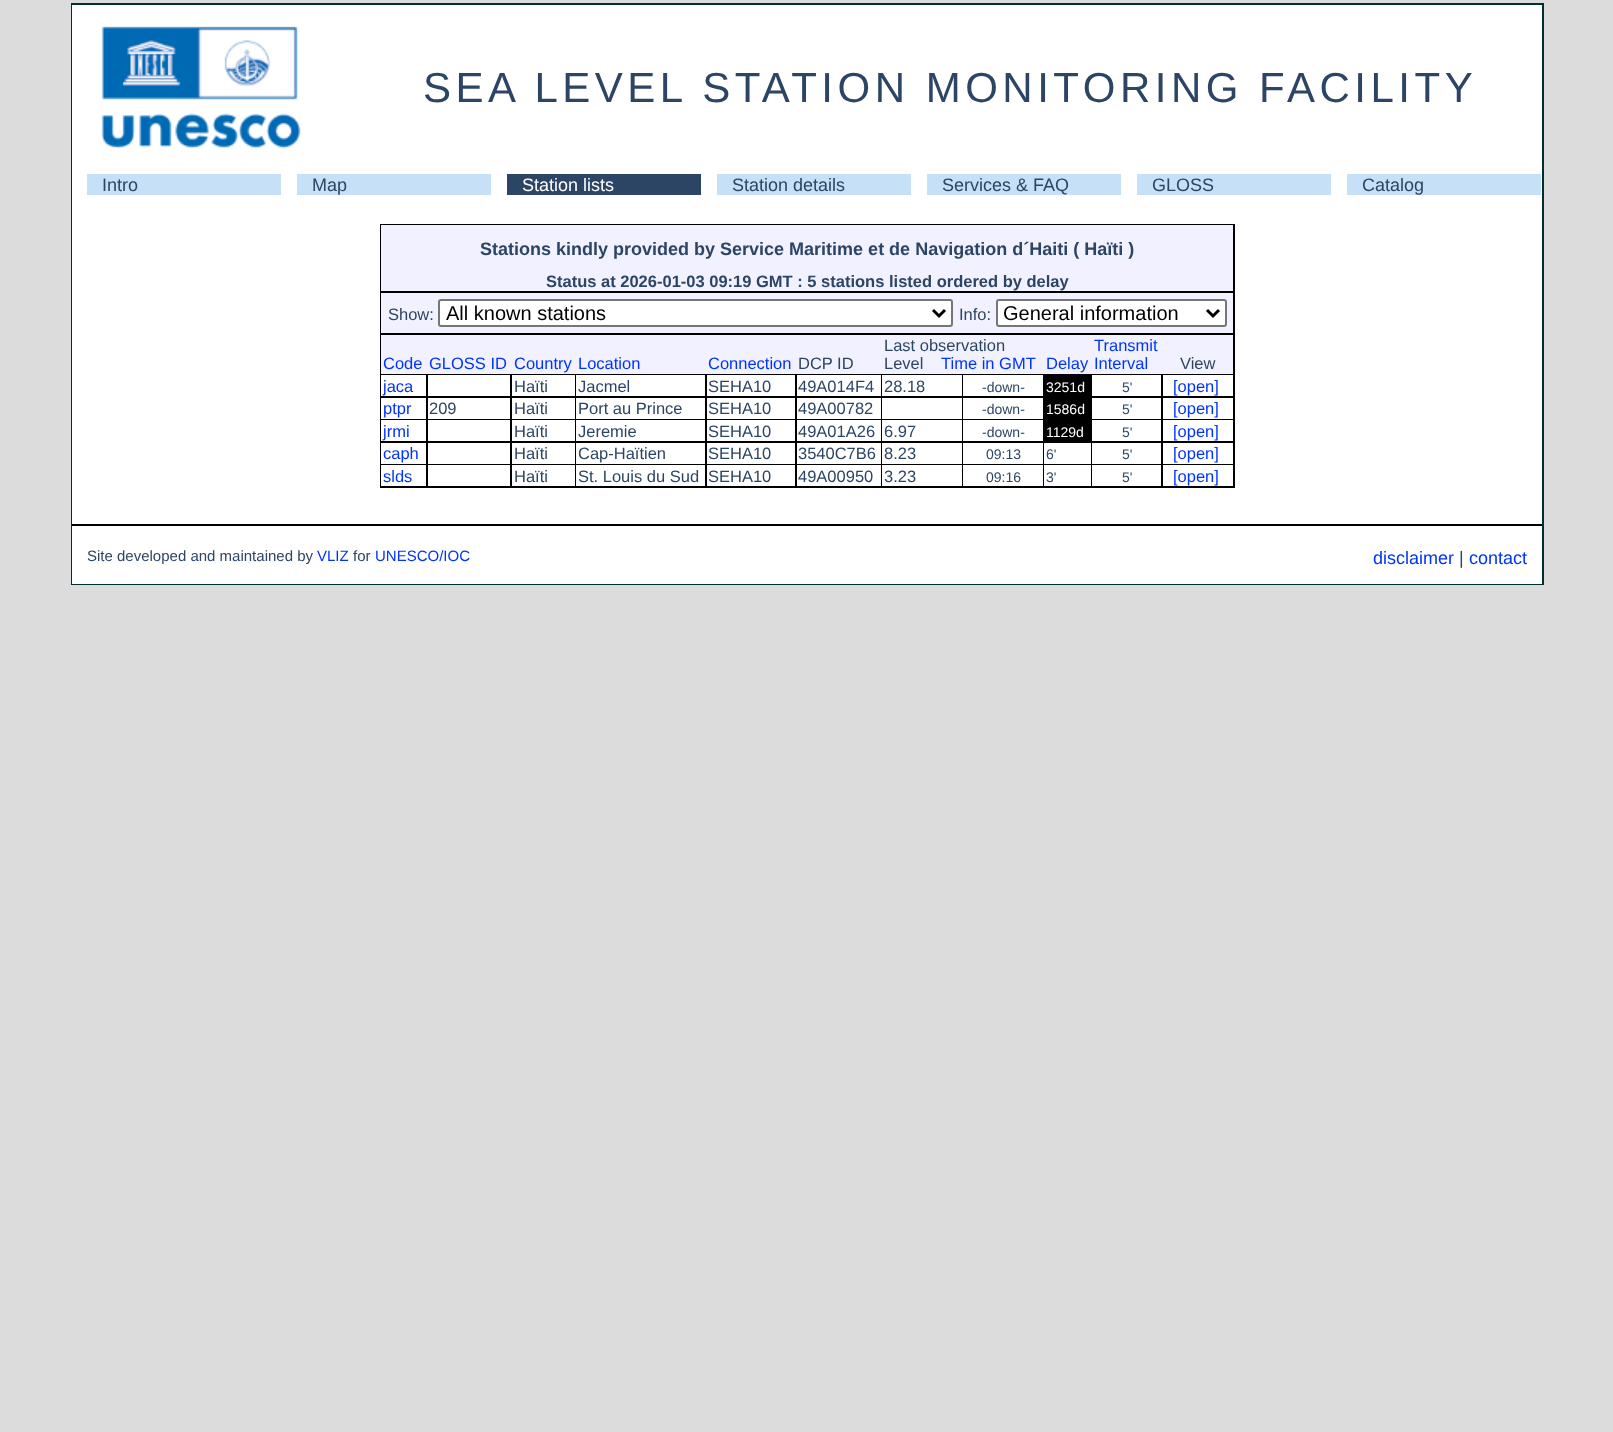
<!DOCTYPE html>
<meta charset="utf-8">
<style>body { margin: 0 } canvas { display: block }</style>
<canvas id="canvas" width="1613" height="1432"></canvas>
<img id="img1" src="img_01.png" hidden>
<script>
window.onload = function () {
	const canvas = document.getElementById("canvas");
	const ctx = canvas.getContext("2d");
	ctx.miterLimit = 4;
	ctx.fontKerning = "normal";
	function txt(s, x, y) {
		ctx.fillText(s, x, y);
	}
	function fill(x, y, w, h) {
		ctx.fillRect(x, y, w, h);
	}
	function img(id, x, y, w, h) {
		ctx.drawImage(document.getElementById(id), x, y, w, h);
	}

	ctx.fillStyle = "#DCDCDC";
	fill(0, 0, 1613, 1432);
	ctx.fillStyle = "#002F2F";
	fill(71, 3, 1473, 582);
	ctx.fillStyle = "#FFFFFF";
	fill(72, 5, 1470, 579);
	img("img1", 101, 26, 200, 123);
	ctx.fillStyle = "#C5E0F7";
	fill(87, 174, 194, 21);
	fill(297, 174, 194, 21);
	ctx.fillStyle = "#2D4564";
	fill(507, 174, 194, 21);
	ctx.fillStyle = "#C5E0F7";
	fill(717, 174, 194, 21);
	fill(927, 174, 194, 21);
	fill(1137, 174, 194, 21);
	fill(1347, 174, 194, 21);
	ctx.fillStyle = "#000000";
	fill(380, 224, 855, 264);
	ctx.fillStyle = "#F1F1FF";
	fill(381, 225, 852, 66);
	fill(381, 293, 852, 40);
	ctx.fillStyle = "#FFFFFF";
	ctx.beginPath();
	ctx.roundRect(439, 300, 513, 26, 2);
	ctx.fill();
	ctx.strokeStyle = "#767676";
	ctx.lineWidth = 2;
	ctx.stroke();
	ctx.beginPath();
	ctx.moveTo(933, 310);
	ctx.lineTo(939, 316);
	ctx.lineTo(945, 310);
	ctx.strokeStyle = "#000000";
	ctx.lineWidth = 3;
	ctx.stroke();
	ctx.beginPath();
	ctx.roundRect(997, 300, 229, 26, 2);
	ctx.fill();
	ctx.strokeStyle = "#767676";
	ctx.lineWidth = 2;
	ctx.stroke();
	ctx.beginPath();
	ctx.moveTo(1207, 310);
	ctx.lineTo(1213, 316);
	ctx.lineTo(1219, 310);
	ctx.strokeStyle = "#000000";
	ctx.lineWidth = 3;
	ctx.stroke();
	ctx.fillStyle = "#F1F1FF";
	fill(381, 335, 852, 39);
	ctx.fillStyle = "#FFFFFF";
	fill(381, 375, 45, 21);
	fill(428, 375, 82, 21);
	fill(512, 375, 63, 21);
	fill(576, 375, 129, 21);
	fill(707, 375, 88, 21);
	fill(797, 375, 84, 21);
	fill(882, 375, 80, 21);
	fill(963, 375, 80, 21);
	fill(1092, 375, 69, 21);
	fill(1163, 375, 70, 21);
	fill(381, 398, 45, 21);
	fill(428, 398, 82, 21);
	fill(512, 398, 63, 21);
	fill(576, 398, 129, 21);
	fill(707, 398, 88, 21);
	fill(797, 398, 84, 21);
	fill(882, 398, 80, 21);
	fill(963, 398, 80, 21);
	fill(1092, 398, 69, 21);
	fill(1163, 398, 70, 21);
	fill(381, 420, 45, 21);
	fill(428, 420, 82, 21);
	fill(512, 420, 63, 21);
	fill(576, 420, 129, 21);
	fill(707, 420, 88, 21);
	fill(797, 420, 84, 21);
	fill(882, 420, 80, 21);
	fill(963, 420, 80, 21);
	fill(1092, 420, 69, 21);
	fill(1163, 420, 70, 21);
	fill(381, 443, 45, 21);
	fill(428, 443, 82, 21);
	fill(512, 443, 63, 21);
	fill(576, 443, 129, 21);
	fill(707, 443, 88, 21);
	fill(797, 443, 84, 21);
	fill(882, 443, 80, 21);
	fill(963, 443, 80, 21);
	fill(1044, 443, 47, 21);
	fill(1092, 443, 69, 21);
	fill(1163, 443, 70, 21);
	fill(381, 465, 45, 21);
	fill(428, 465, 82, 21);
	fill(512, 465, 63, 21);
	fill(576, 465, 129, 21);
	fill(707, 465, 88, 21);
	fill(797, 465, 84, 21);
	fill(882, 465, 80, 21);
	fill(963, 465, 80, 21);
	fill(1044, 465, 47, 21);
	fill(1092, 465, 69, 21);
	fill(1163, 465, 70, 21);
	ctx.fillStyle = "#000000";
	fill(72, 524, 1470, 2);
	ctx.letterSpacing = "4.5px";
	ctx.font = "42px Liberation Sans";
	ctx.fillStyle = "#2D4564";
	txt("SEA LEVEL STATION MONITORING FACILITY", 423, 102);
	ctx.letterSpacing = "0px";
	ctx.font = "18px Liberation Sans";
	txt("Intro", 102, 191);
	txt("Map", 312, 191);
	ctx.fillStyle = "#FFFFFF";
	txt("Station lists", 522, 191);
	ctx.fillStyle = "#2D4564";
	txt("Station details", 732, 191);
	txt("Services & FAQ", 942, 191);
	txt("GLOSS", 1152, 191);
	txt("Catalog", 1362, 191);
	ctx.font = "bold 18px Liberation Sans";
	txt("Stations kindly provided by Service Maritime et de Navigation d´Haiti ( Haïti )", 480, 255);
	ctx.font = "bold 16.5px Liberation Sans";
	txt("Status at 2026-01-03 09:19 GMT : 5 stations listed ordered by delay", 546, 287);
	ctx.font = "16.5px Liberation Sans";
	txt("Show:", 388, 320);
	ctx.font = "20px Liberation Sans";
	ctx.fillStyle = "#000000";
	txt("All known stations", 446, 320);
	ctx.font = "16.5px Liberation Sans";
	ctx.fillStyle = "#2D4564";
	txt("Info:", 959, 320);
	ctx.font = "20px Liberation Sans";
	ctx.fillStyle = "#000000";
	txt("General information", 1003, 320);
	ctx.font = "16.5px Liberation Sans";
	ctx.fillStyle = "#0033FF";
	txt("Code", 383, 369);
	txt("GLOSS ID", 429, 369);
	txt("Country", 514, 369);
	txt("Location", 578, 369);
	txt("Connection", 708, 369);
	ctx.fillStyle = "#2D4564";
	txt("DCP ID", 798, 369);
	txt("Last observation", 884, 351);
	txt("Level", 884, 369);
	ctx.fillStyle = "#0033FF";
	txt("Time in GMT", 941, 369);
	txt("Delay", 1046, 369);
	txt("Transmit", 1094, 351);
	txt("Interval", 1094, 369);
	ctx.fillStyle = "#2D4564";
	txt("View", 1180, 369);
	ctx.fillStyle = "#0033FF";
	txt("jaca", 383, 392);
	ctx.fillStyle = "#2D4564";
	txt("Haïti", 514, 392);
	txt("Jacmel", 578, 392);
	txt("SEHA10", 708, 392);
	txt("49A014F4", 798, 392);
	txt("28.18", 884, 392);
	ctx.font = "14px Liberation Sans";
	txt("-down-", 982, 392);
	ctx.fillStyle = "#FFFFFF";
	txt("3251d", 1046, 392);
	ctx.fillStyle = "#2D4564";
	txt("5'", 1122, 392);
	ctx.font = "16.5px Liberation Sans";
	ctx.fillStyle = "#0033FF";
	txt("[open]", 1173, 392);
	txt("ptpr", 383, 414);
	ctx.fillStyle = "#2D4564";
	txt("209", 429, 414);
	txt("Haïti", 514, 414);
	txt("Port au Prince", 578, 414);
	txt("SEHA10", 708, 414);
	txt("49A00782", 798, 414);
	ctx.font = "14px Liberation Sans";
	txt("-down-", 982, 414);
	ctx.fillStyle = "#FFFFFF";
	txt("1586d", 1046, 414);
	ctx.fillStyle = "#2D4564";
	txt("5'", 1122, 414);
	ctx.font = "16.5px Liberation Sans";
	ctx.fillStyle = "#0033FF";
	txt("[open]", 1173, 414);
	txt("jrmi", 383, 437);
	ctx.fillStyle = "#2D4564";
	txt("Haïti", 514, 437);
	txt("Jeremie", 578, 437);
	txt("SEHA10", 708, 437);
	txt("49A01A26", 798, 437);
	txt("6.97", 884, 437);
	ctx.font = "14px Liberation Sans";
	txt("-down-", 982, 437);
	ctx.fillStyle = "#FFFFFF";
	txt("1129d", 1046, 437);
	ctx.fillStyle = "#2D4564";
	txt("5'", 1122, 437);
	ctx.font = "16.5px Liberation Sans";
	ctx.fillStyle = "#0033FF";
	txt("[open]", 1173, 437);
	txt("caph", 383, 459);
	ctx.fillStyle = "#2D4564";
	txt("Haïti", 514, 459);
	txt("Cap-Haïtien", 578, 459);
	txt("SEHA10", 708, 459);
	txt("3540C7B6", 798, 459);
	txt("8.23", 884, 459);
	ctx.font = "14px Liberation Sans";
	txt("09:13", 986, 459);
	txt("6'", 1046, 459);
	txt("5'", 1122, 459);
	ctx.font = "16.5px Liberation Sans";
	ctx.fillStyle = "#0033FF";
	txt("[open]", 1173, 459);
	txt("slds", 383, 482);
	ctx.fillStyle = "#2D4564";
	txt("Haïti", 514, 482);
	txt("St. Louis du Sud", 578, 482);
	txt("SEHA10", 708, 482);
	txt("49A00950", 798, 482);
	txt("3.23", 884, 482);
	ctx.font = "14px Liberation Sans";
	txt("09:16", 986, 482);
	txt("3'", 1046, 482);
	txt("5'", 1122, 482);
	ctx.font = "16.5px Liberation Sans";
	ctx.fillStyle = "#0033FF";
	txt("[open]", 1173, 482);
	ctx.font = "15px Liberation Sans";
	ctx.fillStyle = "#2D4564";
	txt("Site developed and maintained by", 87, 561);
	ctx.fillStyle = "#0033FF";
	txt("VLIZ", 317, 561);
	ctx.fillStyle = "#2D4564";
	txt("for", 353, 561);
	ctx.fillStyle = "#0033FF";
	txt("UNESCO/IOC", 375, 561);
	ctx.font = "18px Liberation Sans";
	txt("disclaimer", 1373, 564);
	ctx.fillStyle = "#2D4564";
	txt("|", 1459, 564);
	ctx.fillStyle = "#0033FF";
	txt("contact", 1469, 564);
};
</script>
